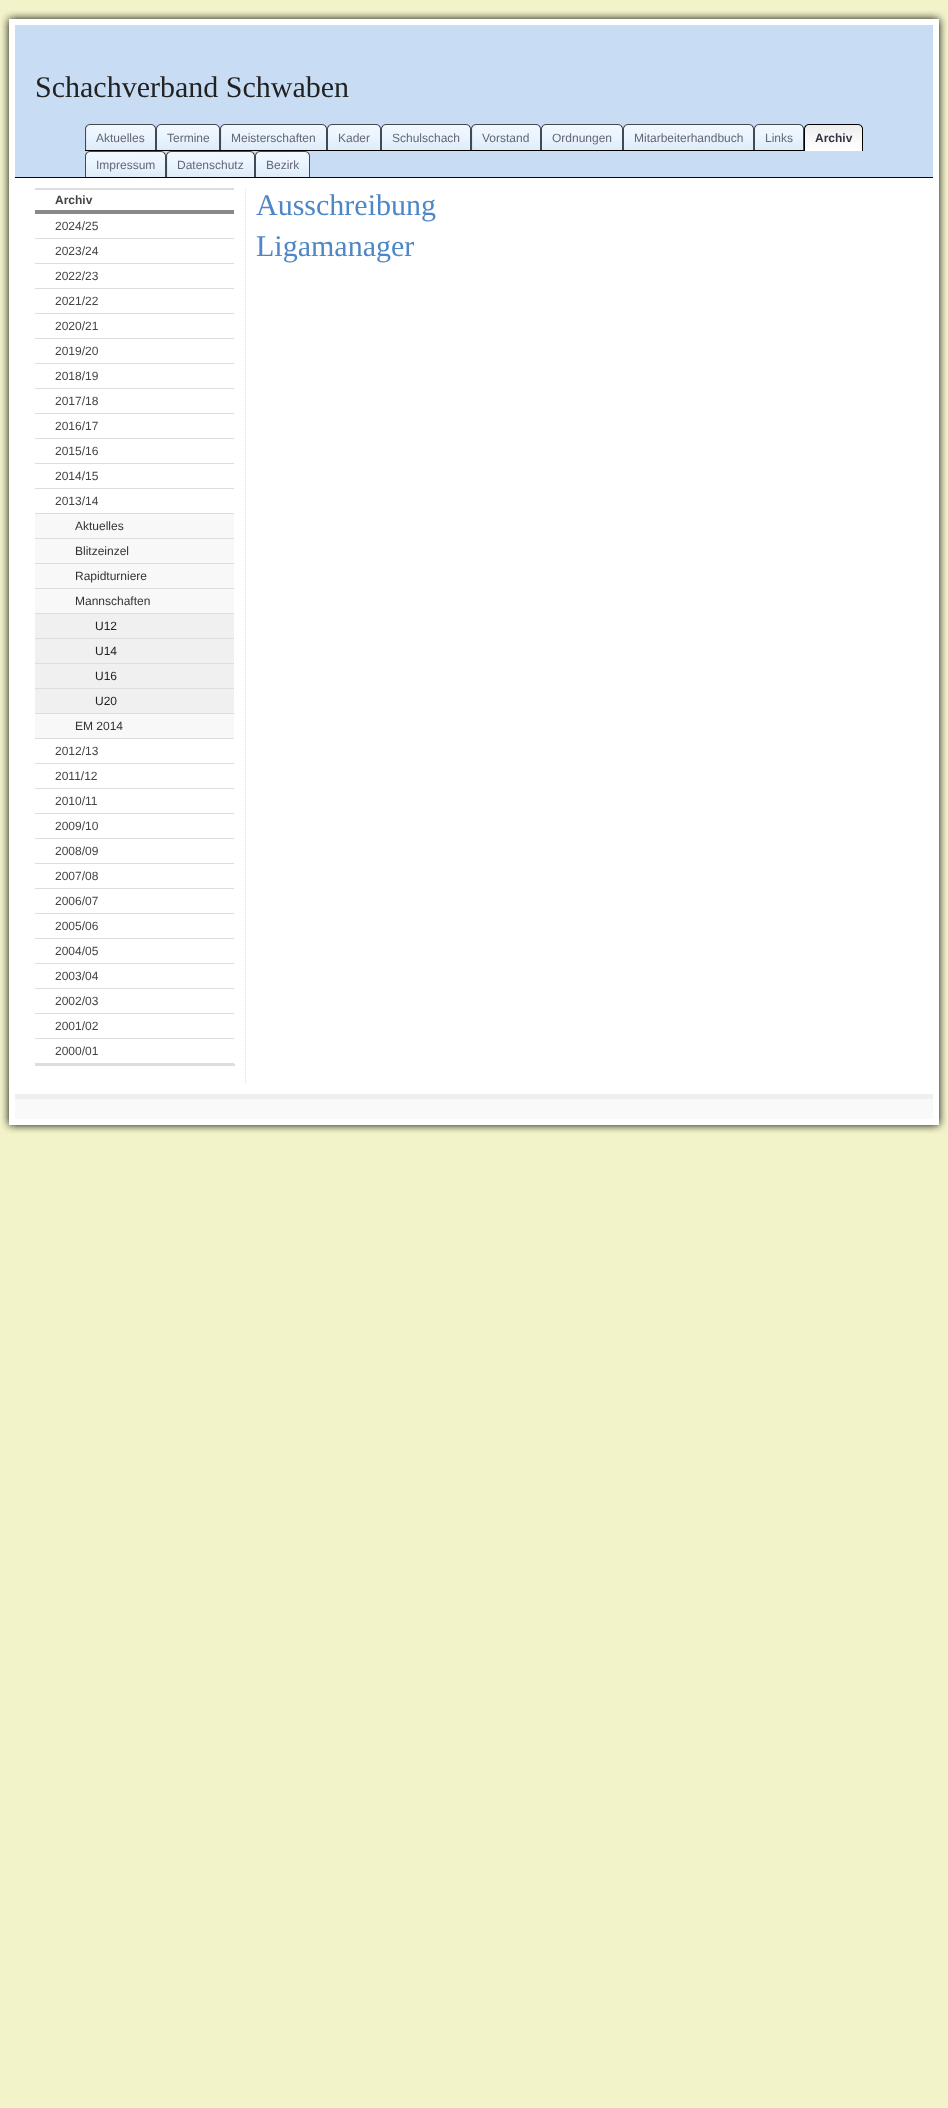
<!DOCTYPE html>
<meta charset="utf-8">
<style>body { margin: 0 } canvas { display: block }</style>
<canvas id="canvas" width="948" height="2108"></canvas>
<img id="img1" src="img_01.png" hidden>
<img id="img2" src="img_02.png" hidden>
<img id="img3" src="img_03.png" hidden>
<img id="img4" src="img_04.png" hidden>
<img id="img5" src="img_05.png" hidden>
<img id="img6" src="img_06.png" hidden>
<img id="img7" src="img_07.png" hidden>
<img id="img8" src="img_08.png" hidden>
<img id="img9" src="img_09.png" hidden>
<img id="img10" src="img_10.png" hidden>
<img id="img11" src="img_11.png" hidden>
<img id="img12" src="img_12.png" hidden>
<img id="img13" src="img_13.png" hidden>
<img id="img14" src="img_14.png" hidden>
<img id="img15" src="img_15.png" hidden>
<img id="img16" src="img_16.png" hidden>
<img id="img17" src="img_17.png" hidden>
<img id="img18" src="img_18.png" hidden>
<img id="img19" src="img_19.png" hidden>
<img id="img20" src="img_20.png" hidden>
<img id="img21" src="img_21.png" hidden>
<img id="img22" src="img_22.png" hidden>
<img id="img23" src="img_23.png" hidden>
<script>
window.onload = function () {
	const canvas = document.getElementById("canvas");
	const ctx = canvas.getContext("2d");
	ctx.miterLimit = 4;
	ctx.fontKerning = "normal";
	function txt(s, x, y) {
		ctx.fillText(s, x, y);
	}
	function fill(x, y, w, h) {
		ctx.fillRect(x, y, w, h);
	}
	function img(id, x, y, w, h) {
		ctx.drawImage(document.getElementById(id), x, y, w, h);
	}

	ctx.fillStyle = "#F2F3C9";
	fill(0, 0, 948, 2108);
	ctx.fillStyle = "#FFFFFF";
	fill(9, 19, 930, 1106);
	img("img1", 0, 26, 9, 1092);
	img("img2", 0, 10, 948, 9);
	img("img3", 0, 11, 16, 15);
	img("img4", 932, 11, 16, 15);
	img("img5", 939, 26, 9, 1092);
	ctx.fillStyle = "#C8DDF3";
	fill(15, 25, 918, 99);
	fill(15, 124, 918, 53);
	ctx.fillStyle = "#060707";
	fill(15, 177, 918, 1);
	img("img6", 85, 124, 66, 26);
	ctx.fillStyle = "#000000";
	fill(85, 150, 719, 1);
	img("img7", 151, 124, 5, 26);
	img("img8", 156, 124, 59, 26);
	img("img7", 215, 124, 5, 26);
	img("img9", 220, 124, 102, 26);
	img("img7", 322, 124, 5, 26);
	img("img10", 327, 124, 49, 26);
	img("img7", 376, 124, 5, 26);
	img("img11", 381, 124, 85, 26);
	img("img7", 466, 124, 5, 26);
	img("img12", 471, 124, 65, 26);
	img("img7", 536, 124, 5, 26);
	img("img13", 541, 124, 77, 26);
	img("img7", 618, 124, 5, 26);
	img("img14", 623, 124, 126, 26);
	img("img7", 749, 124, 5, 26);
	img("img15", 754, 124, 45, 26);
	img("img7", 799, 124, 5, 26);
	img("img16", 804, 124, 54, 27);
	img("img17", 858, 124, 5, 27);
	img("img18", 85, 151, 76, 26);
	fill(85, 177, 225, 1);
	img("img7", 161, 151, 5, 26);
	img("img19", 166, 151, 84, 26);
	img("img7", 250, 151, 5, 26);
	img("img20", 255, 151, 50, 26);
	img("img7", 305, 151, 5, 26);
	ctx.fillStyle = "#DDDDDD";
	fill(35, 188, 199, 2);
	ctx.fillStyle = "#888888";
	fill(35, 210, 199, 4);
	ctx.fillStyle = "#DDDDDD";
	fill(35, 1064, 200, 2);
	fill(35, 238, 199, 1);
	fill(35, 263, 199, 1);
	fill(35, 288, 199, 1);
	fill(35, 313, 199, 1);
	fill(35, 338, 199, 1);
	fill(35, 363, 199, 1);
	fill(35, 388, 199, 1);
	fill(35, 413, 199, 1);
	fill(35, 438, 199, 1);
	fill(35, 463, 199, 1);
	fill(35, 488, 199, 1);
	fill(35, 513, 199, 1);
	ctx.fillStyle = "#F8F8F8";
	fill(35, 514, 199, 24);
	ctx.fillStyle = "#DDDDDD";
	fill(35, 538, 199, 1);
	ctx.fillStyle = "#F8F8F8";
	fill(35, 539, 199, 24);
	ctx.fillStyle = "#DDDDDD";
	fill(35, 563, 199, 1);
	ctx.fillStyle = "#F8F8F8";
	fill(35, 564, 199, 24);
	ctx.fillStyle = "#DDDDDD";
	fill(35, 588, 199, 1);
	ctx.fillStyle = "#F8F8F8";
	fill(35, 589, 199, 24);
	ctx.fillStyle = "#DDDDDD";
	fill(35, 613, 199, 1);
	ctx.fillStyle = "#F0F0F0";
	fill(35, 614, 199, 24);
	ctx.fillStyle = "#DDDDDD";
	fill(35, 638, 199, 1);
	ctx.fillStyle = "#F0F0F0";
	fill(35, 639, 199, 24);
	ctx.fillStyle = "#DDDDDD";
	fill(35, 663, 199, 1);
	ctx.fillStyle = "#F0F0F0";
	fill(35, 664, 199, 24);
	ctx.fillStyle = "#DDDDDD";
	fill(35, 688, 199, 1);
	ctx.fillStyle = "#F0F0F0";
	fill(35, 689, 199, 24);
	ctx.fillStyle = "#DDDDDD";
	fill(35, 713, 199, 1);
	ctx.fillStyle = "#F8F8F8";
	fill(35, 714, 199, 24);
	ctx.fillStyle = "#DDDDDD";
	fill(35, 738, 199, 1);
	fill(35, 763, 199, 1);
	fill(35, 788, 199, 1);
	fill(35, 813, 199, 1);
	fill(35, 838, 199, 1);
	fill(35, 863, 199, 1);
	fill(35, 888, 199, 1);
	fill(35, 913, 199, 1);
	fill(35, 938, 199, 1);
	fill(35, 963, 199, 1);
	fill(35, 988, 199, 1);
	fill(35, 1013, 199, 1);
	fill(35, 1038, 199, 1);
	fill(35, 1063, 199, 1);
	ctx.beginPath();
	ctx.moveTo(245.5, 188);
	ctx.lineTo(245.5, 1084);
	ctx.strokeStyle = "#DDDDDD";
	ctx.setLineDash([1, 1]);
	ctx.stroke();
	ctx.fillStyle = "#F9F9F9";
	fill(15, 1099, 918, 20);
	ctx.fillStyle = "#EFEFEF";
	fill(15, 1094, 918, 5);
	img("img21", 0, 1125, 948, 9);
	img("img22", 0, 1118, 16, 15);
	img("img23", 932, 1118, 16, 15);
	ctx.font = "30px Liberation Serif";
	ctx.fillStyle = "#222222";
	txt("Schachverband Schwaben", 35, 97);
	ctx.font = "12px Liberation Sans";
	ctx.fillStyle = "#666677";
	txt("Aktuelles", 96, 142);
	txt("Termine", 167, 142);
	txt("Meisterschaften", 231, 142);
	txt("Kader", 338, 142);
	txt("Schulschach", 392, 142);
	txt("Vorstand", 482, 142);
	txt("Ordnungen", 552, 142);
	txt("Mitarbeiterhandbuch", 634, 142);
	txt("Links", 765, 142);
	ctx.font = "bold 12px Liberation Sans";
	ctx.fillStyle = "#333344";
	txt("Archiv", 815, 142);
	ctx.font = "12px Liberation Sans";
	ctx.fillStyle = "#666677";
	txt("Impressum", 96, 169);
	txt("Datenschutz", 177, 169);
	txt("Bezirk", 266, 169);
	ctx.font = "bold 12px Liberation Sans";
	ctx.fillStyle = "#444444";
	txt("Archiv", 55, 204);
	ctx.font = "12px Liberation Sans";
	txt("2024/25", 55, 230);
	txt("2023/24", 55, 255);
	txt("2022/23", 55, 280);
	txt("2021/22", 55, 305);
	txt("2020/21", 55, 330);
	txt("2019/20", 55, 355);
	txt("2018/19", 55, 380);
	txt("2017/18", 55, 405);
	txt("2016/17", 55, 430);
	txt("2015/16", 55, 455);
	txt("2014/15", 55, 480);
	txt("2013/14", 55, 505);
	ctx.fillStyle = "#333333";
	txt("Aktuelles", 75, 530);
	txt("Blitzeinzel", 75, 555);
	txt("Rapidturniere", 75, 580);
	txt("Mannschaften", 75, 605);
	ctx.fillStyle = "#222222";
	txt("U12", 95, 630);
	txt("U14", 95, 655);
	txt("U16", 95, 680);
	txt("U20", 95, 705);
	ctx.fillStyle = "#333333";
	txt("EM 2014", 75, 730);
	ctx.fillStyle = "#444444";
	txt("2012/13", 55, 755);
	txt("2011/12", 55, 780);
	txt("2010/11", 55, 805);
	txt("2009/10", 55, 830);
	txt("2008/09", 55, 855);
	txt("2007/08", 55, 880);
	txt("2006/07", 55, 905);
	txt("2005/06", 55, 930);
	txt("2004/05", 55, 955);
	txt("2003/04", 55, 980);
	txt("2002/03", 55, 1005);
	txt("2001/02", 55, 1030);
	txt("2000/01", 55, 1055);
	ctx.font = "30px Liberation Serif";
	ctx.fillStyle = "#4D87C7";
	txt("Ausschreibung", 256, 215);
	txt("Ligamanager", 256, 256);
};
</script>
